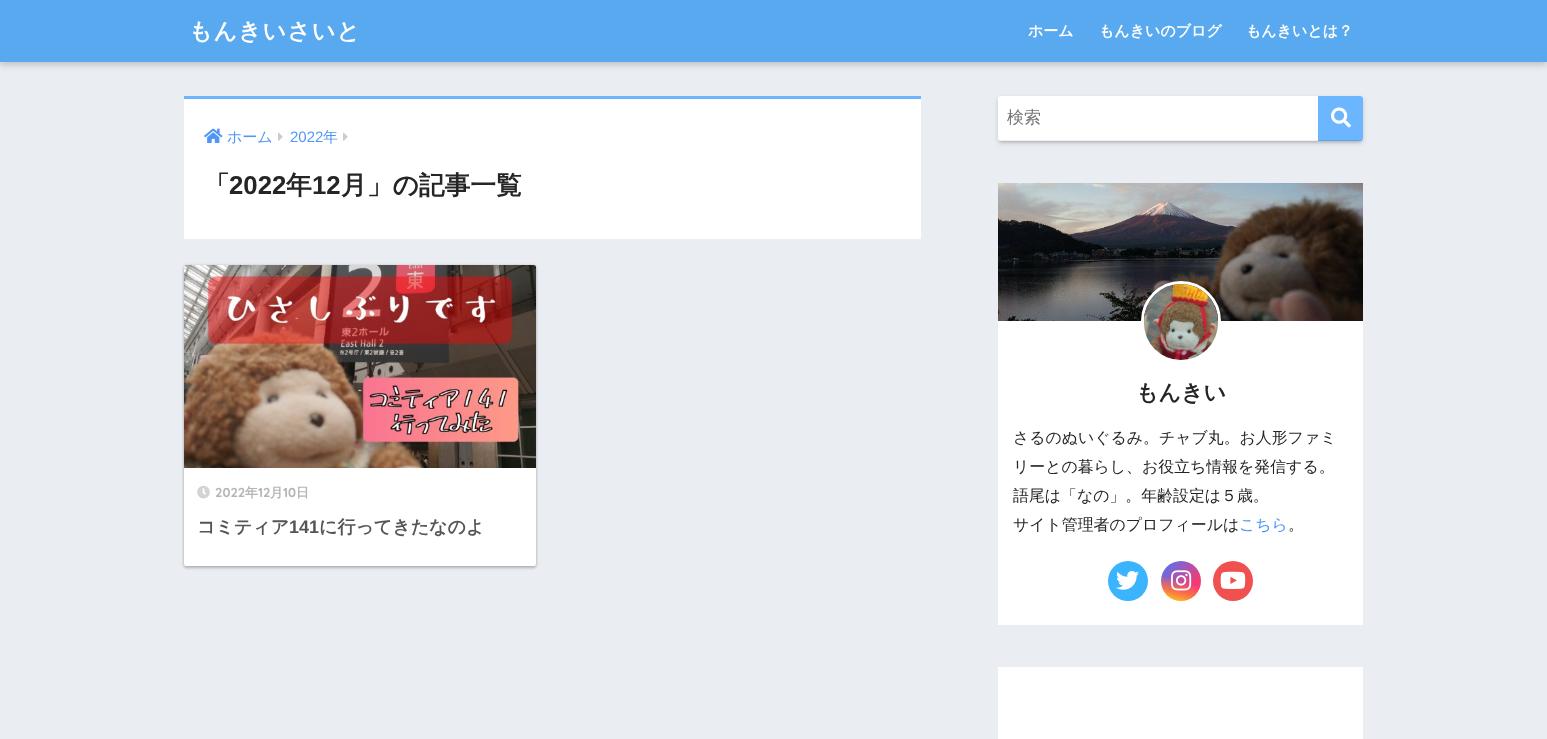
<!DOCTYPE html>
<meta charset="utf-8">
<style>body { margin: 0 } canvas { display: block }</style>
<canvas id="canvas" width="1547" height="739"></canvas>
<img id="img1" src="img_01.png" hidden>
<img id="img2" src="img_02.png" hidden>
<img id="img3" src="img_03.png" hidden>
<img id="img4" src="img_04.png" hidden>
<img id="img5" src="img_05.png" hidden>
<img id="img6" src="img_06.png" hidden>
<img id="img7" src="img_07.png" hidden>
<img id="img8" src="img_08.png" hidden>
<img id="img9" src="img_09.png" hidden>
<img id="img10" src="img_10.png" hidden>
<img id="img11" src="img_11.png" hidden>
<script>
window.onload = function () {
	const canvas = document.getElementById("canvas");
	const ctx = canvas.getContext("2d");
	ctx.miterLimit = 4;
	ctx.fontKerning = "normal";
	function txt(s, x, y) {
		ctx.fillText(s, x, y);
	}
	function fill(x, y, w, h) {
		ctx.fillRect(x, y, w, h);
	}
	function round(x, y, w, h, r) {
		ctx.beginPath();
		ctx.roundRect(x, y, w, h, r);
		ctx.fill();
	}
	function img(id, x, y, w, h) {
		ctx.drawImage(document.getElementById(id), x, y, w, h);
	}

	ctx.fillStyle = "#EAEDF2";
	fill(0, 0, 1547, 739);
	ctx.fillStyle = "rgba(0, 0, 0, 0.18)";
	ctx.filter = "blur(3px)";
	ctx.beginPath();
	ctx.rect(0, 3, 1547, 62);
	ctx.fill();
	ctx.filter = "none";
	ctx.fillStyle = "#58A9EF";
	fill(0, 0, 1547, 62);
	ctx.fillStyle = "#FFFFFF";
	fill(184, 99, 737, 140);
	ctx.fillStyle = "#6BB6FF";
	fill(184, 96, 737, 3);
	img("img1", 204, 128, 19, 15);
	img("img2", 278, 132, 5, 9);
	img("img2", 343, 132, 5, 9);
	ctx.fillStyle = "rgba(0, 0, 0, 0.22)";
	ctx.filter = "blur(1.5px)";
	ctx.beginPath();
	ctx.roundRect(184, 267, 352, 301, 2);
	ctx.fill();
	ctx.filter = "none";
	ctx.fillStyle = "rgba(0, 0, 0, 0.12)";
	ctx.filter = "blur(1.5px)";
	ctx.beginPath();
	ctx.roundRect(184, 265, 352, 301, 2);
	ctx.fill();
	ctx.filter = "none";
	ctx.fillStyle = "#FFFFFF";
	round(184, 265, 352, 301, 2);
	img("img3", 184, 265, 352, 203);
	img("img4", 197, 485, 13, 14);
	ctx.fillStyle = "rgba(0, 0, 0, 0.15)";
	ctx.filter = "blur(1.5px)";
	ctx.beginPath();
	ctx.roundRect(1000, 101, 361, 41, 1);
	ctx.fill();
	ctx.filter = "none";
	ctx.filter = "blur(2.5px)";
	ctx.beginPath();
	ctx.roundRect(998, 98, 365, 45, 3);
	ctx.fill();
	ctx.filter = "none";
	ctx.fillStyle = "#FFFFFF";
	round(998, 96, 365, 45, 3);
	ctx.fillStyle = "#EFEFEF";
	fill(1000, 140, 362, 1);
	ctx.fillStyle = "#6BB6FF";
	ctx.beginPath();
	ctx.roundRect(1318, 96, 45, 45, [0, 3, 3, 0]);
	ctx.fill();
	ctx.fillStyle = "rgba(0, 0, 0, 0.1)";
	fill(1318, 140, 44, 1);
	img("img5", 1331, 107, 20, 21);
	ctx.fillStyle = "#FFFFFF";
	fill(998, 321, 365, 304);
	img("img6", 998, 183, 365, 138);
	ctx.beginPath();
	ctx.roundRect(1142.5, 282.5, 77, 79, 38.5);
	ctx.strokeStyle = "#FFFFFF";
	ctx.lineWidth = 3;
	ctx.stroke();
	img("img7", 1144, 284, 74, 76);
	ctx.fillStyle = "#3AB4FF";
	ctx.beginPath();
	ctx.arc(1128, 581, 20, 0, Math.PI * 2);
	ctx.fill();
	img("img8", 1116, 571, 23, 19);
	img("img9", 1161, 561, 40, 40);
	img("img10", 1171, 570, 21, 21);
	ctx.fillStyle = "#F0504F";
	ctx.beginPath();
	ctx.arc(1233, 581, 20, 0, Math.PI * 2);
	ctx.fill();
	img("img11", 1220, 571, 26, 18);
	ctx.fillStyle = "#FFFFFF";
	fill(998, 667, 365, 72);
	ctx.letterSpacing = "1px";
	ctx.font = "bold 23px WenQuanYi Zen Hei";
	txt("もんきいさいと", 189, 39);
	ctx.letterSpacing = "0px";
	ctx.font = "bold 15px WenQuanYi Zen Hei";
	txt("ホーム", 1028, 36);
	txt("もんきいのブログ", 1099, 36);
	txt("もんきいとは？", 1246, 36);
	ctx.font = "500 15px WenQuanYi Zen Hei";
	ctx.fillStyle = "#4F96F6";
	txt("ホーム", 227, 142);
	ctx.font = "15px Liberation Sans";
	txt("2022", 290, 142);
	ctx.font = "500 15px WenQuanYi Zen Hei";
	txt("年", 323, 142);
	ctx.font = "bold 25.75px WenQuanYi Zen Hei";
	ctx.fillStyle = "#252525";
	txt("「", 204, 194);
	ctx.font = "bold 25.75px Liberation Sans";
	txt("2022", 229, 194);
	ctx.font = "bold 25.75px WenQuanYi Zen Hei";
	txt("年", 286, 194);
	ctx.font = "bold 25.75px Liberation Sans";
	txt("12", 312, 194);
	ctx.font = "bold 25.75px WenQuanYi Zen Hei";
	txt("月」の記事一覧", 341, 194);
	ctx.font = "bold 13px Quicksand";
	ctx.fillStyle = "#B5B5B5";
	txt("2022", 215, 497);
	ctx.font = "bold 13px WenQuanYi Zen Hei";
	txt("年", 245, 497);
	ctx.font = "bold 13px Quicksand";
	txt("12", 258, 497);
	ctx.font = "bold 13px WenQuanYi Zen Hei";
	txt("月", 270, 497);
	ctx.font = "bold 13px Quicksand";
	txt("10", 283, 497);
	ctx.font = "bold 13px WenQuanYi Zen Hei";
	txt("日", 296, 497);
	ctx.font = "bold 18px WenQuanYi Zen Hei";
	ctx.fillStyle = "#555555";
	txt("コミティア", 197, 533);
	ctx.font = "bold 18px Liberation Sans";
	txt("141", 289, 533);
	ctx.font = "bold 18px WenQuanYi Zen Hei";
	txt("に行ってきたなのよ", 319, 533);
	ctx.font = "500 17px WenQuanYi Zen Hei";
	ctx.fillStyle = "#757575";
	txt("検索", 1007, 123);
	ctx.font = "bold 22px WenQuanYi Zen Hei";
	ctx.fillStyle = "#252525";
	txt("もんきい", 1136, 400);
	ctx.font = "500 15.9px WenQuanYi Zen Hei";
	txt("さるのぬいぐるみ。チャブ丸。お人形ファミ", 1013, 443);
	txt("リーとの暮らし、お役立ち情報を発信する。", 1013, 472);
	txt("語尾は「なの」。年齢設定は５歳。", 1013, 501);
	txt("サイト管理者のプロフィールは", 1013, 530);
	ctx.fillStyle = "#4F96F6";
	txt("こちら", 1239, 530);
	ctx.fillStyle = "#252525";
	txt("。", 1288, 530);
};
</script>
